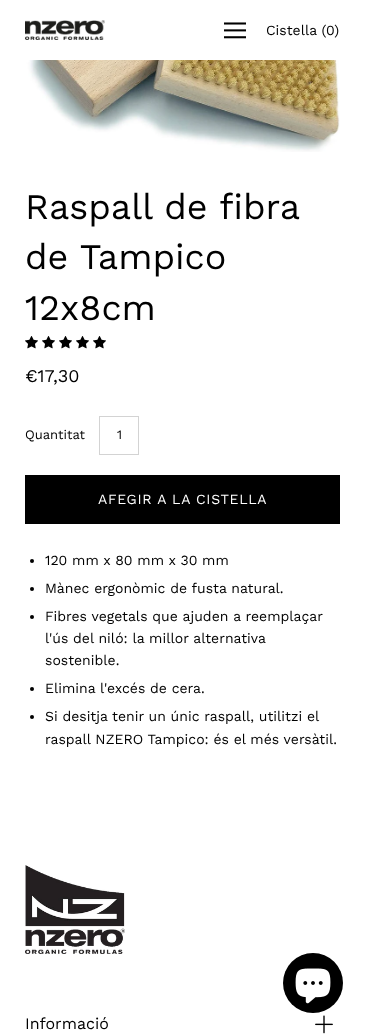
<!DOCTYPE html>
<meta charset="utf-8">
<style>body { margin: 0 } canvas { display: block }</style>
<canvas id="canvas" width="365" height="1034"></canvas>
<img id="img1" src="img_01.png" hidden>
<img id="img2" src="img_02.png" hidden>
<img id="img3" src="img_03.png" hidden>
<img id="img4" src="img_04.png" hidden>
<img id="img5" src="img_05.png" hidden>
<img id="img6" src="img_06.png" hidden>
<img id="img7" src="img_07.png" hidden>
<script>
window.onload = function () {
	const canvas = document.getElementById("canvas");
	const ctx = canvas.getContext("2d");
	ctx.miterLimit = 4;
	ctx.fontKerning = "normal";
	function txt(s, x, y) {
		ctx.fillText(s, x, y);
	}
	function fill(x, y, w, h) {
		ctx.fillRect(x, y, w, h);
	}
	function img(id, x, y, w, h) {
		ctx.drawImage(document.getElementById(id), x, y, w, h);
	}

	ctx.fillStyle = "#FFFFFF";
	fill(0, 0, 365, 1034);
	img("img1", 25, 20, 80, 20);
	img("img2", 224, 22, 22, 17);
	img("img3", 25, 60, 315, 92);
	img("img4", 25, 336, 13, 13);
	img("img4", 42, 336, 13, 13);
	img("img4", 59, 336, 13, 13);
	img("img4", 76, 336, 13, 13);
	img("img4", 93, 336, 13, 13);
	ctx.strokeStyle = "#D3D3D3";
	ctx.strokeRect(99.5, 416.5, 39, 38);
	ctx.strokeStyle = "#000000";
	ctx.lineWidth = 2;
	ctx.strokeRect(26, 476, 313, 47);
	ctx.fillStyle = "#000000";
	fill(27, 477, 311, 45);
	ctx.beginPath();
	ctx.arc(32, 561, 2, 0, Math.PI * 2);
	ctx.fill();
	ctx.beginPath();
	ctx.arc(32, 589, 2, 0, Math.PI * 2);
	ctx.fill();
	ctx.beginPath();
	ctx.arc(32, 617, 2, 0, Math.PI * 2);
	ctx.fill();
	ctx.beginPath();
	ctx.arc(32, 689, 2, 0, Math.PI * 2);
	ctx.fill();
	ctx.beginPath();
	ctx.arc(32, 717, 2, 0, Math.PI * 2);
	ctx.fill();
	img("img5", 25, 865, 100, 89);
	img("img6", 315, 1015, 18, 19);
	ctx.beginPath();
	ctx.arc(313, 983, 30, 0, Math.PI * 2);
	ctx.fill();
	img("img7", 295, 968, 36, 36);
	ctx.font = "14px Work Sans";
	txt("Cistella (0)", 266, 35);
	ctx.font = "36px Work Sans";
	txt("Raspall de fibra", 25, 219);
	txt("de Tampico", 25, 269);
	txt("12x8cm", 25, 320);
	ctx.font = "18px Work Sans";
	txt("€17,30", 25, 382);
	ctx.font = "13px Work Sans";
	txt("Quantitat", 25, 439);
	txt("1", 117, 439);
	ctx.letterSpacing = "0.7px";
	ctx.font = "14px Work Sans";
	ctx.fillStyle = "#FFFFFF";
	txt("AFEGIR A LA CISTELLA", 98, 504);
	ctx.letterSpacing = "0px";
	ctx.fillStyle = "#000000";
	txt("120 mm x 80 mm x 30 mm", 45, 565);
	txt("Mànec ergonòmic de fusta natural.", 45, 593);
	txt("Fibres vegetals que ajuden a reemplaçar", 45, 621);
	txt("l'ús del niló: la millor alternativa", 45, 643);
	txt("sostenible.", 45, 665);
	txt("Elimina l'excés de cera.", 45, 693);
	txt("Si desitja tenir un únic raspall, utilitzi el", 45, 721);
	txt("raspall NZERO Tampico: és el més versàtil.", 45, 744);
	ctx.font = "16px Work Sans";
	txt("Informació", 25, 1029);
};
</script>
